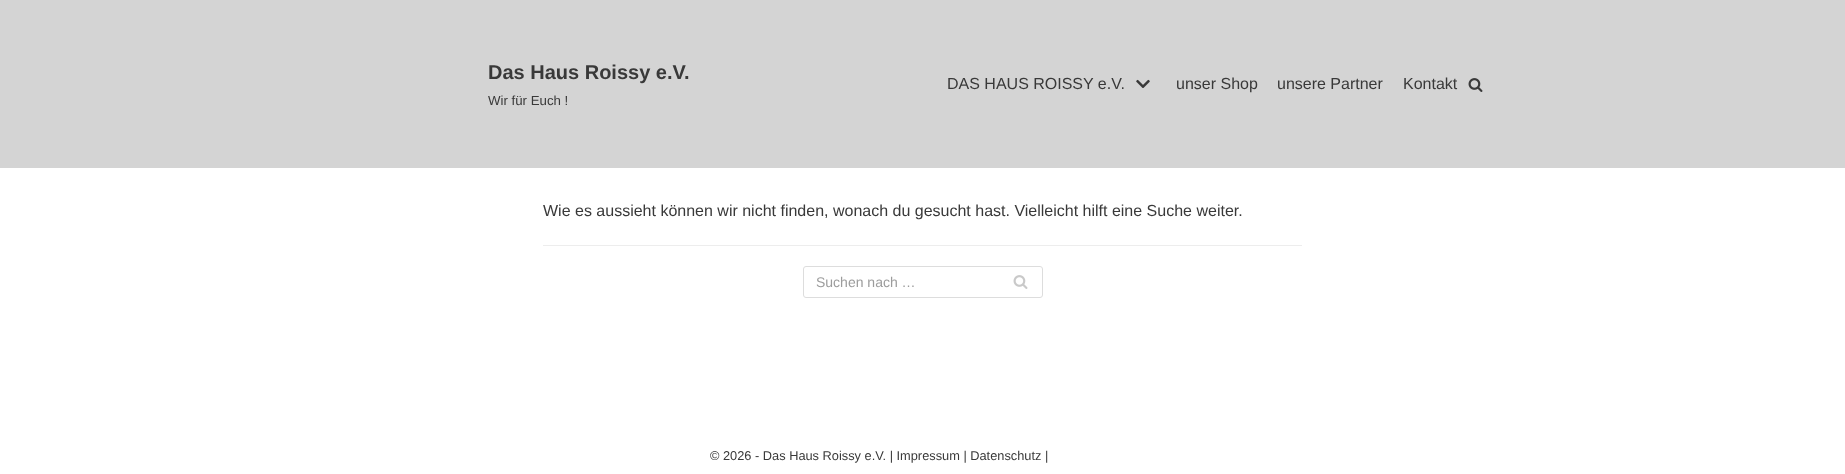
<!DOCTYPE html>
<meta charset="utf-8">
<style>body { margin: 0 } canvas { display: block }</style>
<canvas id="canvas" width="1845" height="474"></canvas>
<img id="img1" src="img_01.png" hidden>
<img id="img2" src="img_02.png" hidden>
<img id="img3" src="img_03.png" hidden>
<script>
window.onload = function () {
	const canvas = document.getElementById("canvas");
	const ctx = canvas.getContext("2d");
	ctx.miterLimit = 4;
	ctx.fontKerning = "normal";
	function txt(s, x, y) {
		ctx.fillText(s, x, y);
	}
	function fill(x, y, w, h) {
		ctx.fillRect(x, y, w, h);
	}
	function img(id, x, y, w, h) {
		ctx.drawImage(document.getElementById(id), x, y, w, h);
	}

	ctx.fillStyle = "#FFFFFF";
	fill(0, 0, 1845, 474);
	ctx.fillStyle = "#D4D4D4";
	fill(0, 0, 1845, 168);
	img("img1", 1136, 79, 14, 9);
	img("img2", 1468, 78, 15, 14);
	ctx.fillStyle = "#EDEDED";
	fill(543, 245, 759, 1);
	ctx.beginPath();
	ctx.roundRect(803.5, 266.5, 239, 31, 2.5);
	ctx.strokeStyle = "#DDDDDD";
	ctx.stroke();
	img("img3", 1013, 275, 15, 14);
	ctx.font = "bold 20px Liberation Sans";
	ctx.fillStyle = "#393939";
	txt("Das Haus Roissy e.V.", 488, 79);
	ctx.font = "13.25px Liberation Sans";
	txt("Wir für Euch !", 488, 105);
	ctx.font = "16px Liberation Sans";
	txt("DAS HAUS ROISSY e.V.", 947, 89);
	txt("unser Shop", 1176, 89);
	txt("unsere Partner", 1277, 89);
	txt("Kontakt", 1403, 89);
	txt("Wie es aussieht können wir nicht finden, wonach du gesucht hast. Vielleicht hilft eine Suche weiter.", 543, 216);
	ctx.font = "14px Liberation Sans";
	ctx.fillStyle = "#9C9C9C";
	txt("Suchen nach …", 816, 287);
	ctx.font = "12.8px Liberation Sans";
	ctx.fillStyle = "#393939";
	txt("© 2026 - Das Haus Roissy e.V. | Impressum | Datenschutz |", 710, 460);
};
</script>
